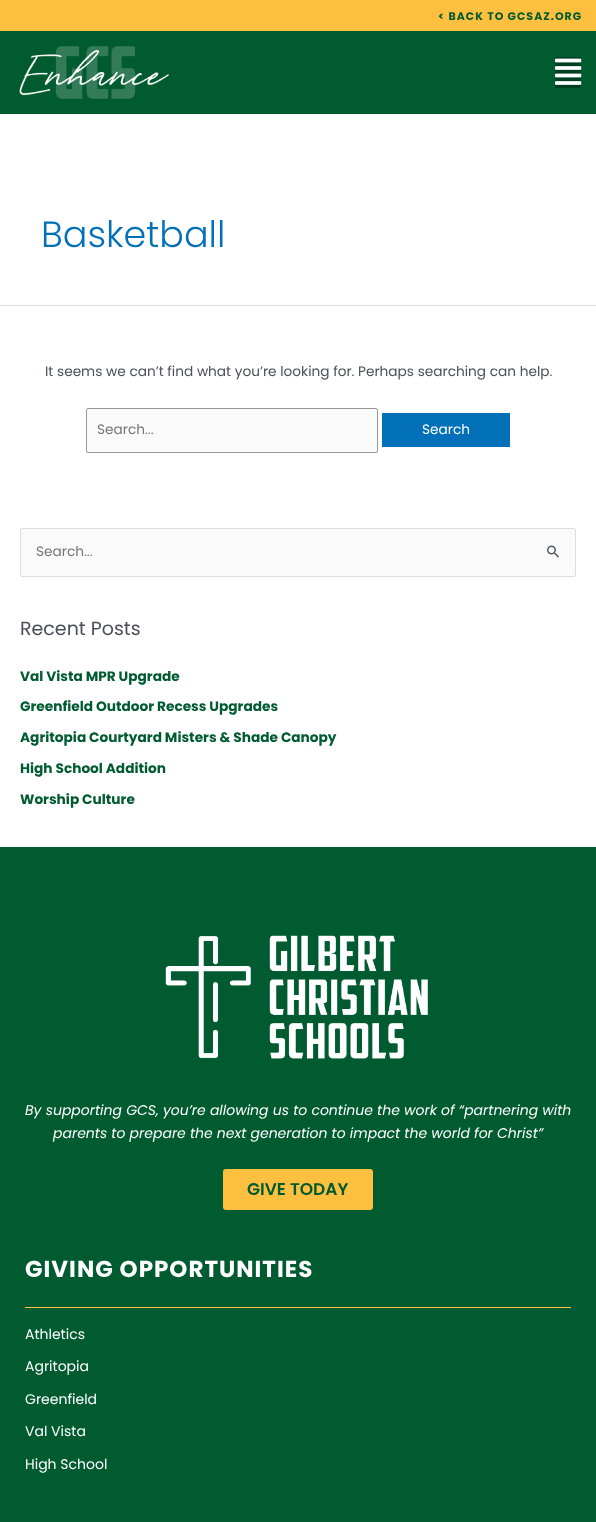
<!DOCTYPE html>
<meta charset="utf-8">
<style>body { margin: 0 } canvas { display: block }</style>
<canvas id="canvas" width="596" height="1522"></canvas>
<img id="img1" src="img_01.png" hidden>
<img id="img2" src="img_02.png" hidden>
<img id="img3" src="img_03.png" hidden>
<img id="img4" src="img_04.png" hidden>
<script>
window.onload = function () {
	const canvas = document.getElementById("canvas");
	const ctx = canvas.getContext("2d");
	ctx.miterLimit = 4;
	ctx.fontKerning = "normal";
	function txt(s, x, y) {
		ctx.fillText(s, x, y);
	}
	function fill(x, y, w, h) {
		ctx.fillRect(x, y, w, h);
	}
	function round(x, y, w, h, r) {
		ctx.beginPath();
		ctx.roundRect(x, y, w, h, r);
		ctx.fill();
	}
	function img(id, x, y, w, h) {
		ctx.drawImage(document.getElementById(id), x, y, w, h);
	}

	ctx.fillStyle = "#FFFFFF";
	fill(0, 0, 596, 1522);
	ctx.fillStyle = "#FFBF3F";
	fill(0, 0, 596, 31);
	ctx.fillStyle = "#015B30";
	fill(0, 31, 596, 83);
	img("img1", 19, 46, 150, 53);
	ctx.fillStyle = "#013F21";
	fill(555, 57, 26, 31);
	img("img2", 555, 58, 27, 27);
	ctx.fillStyle = "#DDDDDD";
	fill(0, 305, 596, 1);
	ctx.fillStyle = "#FAFAFA";
	ctx.beginPath();
	ctx.roundRect(86.5, 408.5, 291, 44, 1.5);
	ctx.fill();
	ctx.strokeStyle = "#999999";
	ctx.stroke();
	ctx.fillStyle = "#0170B9";
	fill(382, 413, 128, 34);
	ctx.fillStyle = "#FAFAFA";
	ctx.beginPath();
	ctx.roundRect(20.5, 528.5, 555, 48, 1.5);
	ctx.fill();
	ctx.strokeStyle = "#DDDDDD";
	ctx.stroke();
	img("img3", 547, 545, 12, 13);
	ctx.fillStyle = "#015B30";
	fill(0, 847, 596, 675);
	img("img4", 165, 935, 263, 124);
	ctx.fillStyle = "#FFBF3F";
	round(223, 1169, 150, 41, 3);
	fill(25, 1307, 546, 1);
	ctx.letterSpacing = "1px";
	ctx.font = "bold 11px Poppins";
	ctx.fillStyle = "#015B30";
	txt("< BACK TO GCSAZ.ORG", 438, 20);
	ctx.letterSpacing = "0px";
	ctx.font = "300 36.5px Poppins";
	ctx.fillStyle = "#0170B9";
	txt("Basketball", 41, 247);
	ctx.font = "13.7px Poppins";
	ctx.fillStyle = "#4B4F58";
	txt("It seems we can’t find what you’re looking for. Perhaps searching can help.", 45, 376);
	ctx.fillStyle = "#757575";
	txt("Search...", 97, 434);
	ctx.fillStyle = "#FFFFFF";
	txt("Search", 422, 434);
	ctx.fillStyle = "#757575";
	txt("Search...", 36, 556);
	ctx.font = "19px Poppins";
	ctx.fillStyle = "#4B4F58";
	txt("Recent Posts", 20, 635);
	ctx.font = "bold 13.7px Poppins";
	ctx.fillStyle = "#015B30";
	txt("Val Vista MPR Upgrade", 20, 681);
	txt("Greenfield Outdoor Recess Upgrades", 20, 711);
	txt("Agritopia Courtyard Misters & Shade Canopy", 20, 742);
	txt("High School Addition", 20, 773);
	txt("Worship Culture", 20, 804);
	ctx.font = "italic 14px Poppins";
	ctx.fillStyle = "#FFFFFF";
	txt("By supporting GCS, you’re allowing us to continue the work of “partnering with", 25, 1115);
	txt("parents to prepare the next generation to impact the world for Christ”", 53, 1138);
	ctx.font = "600 17px Poppins";
	ctx.fillStyle = "#015B30";
	txt("GIVE TODAY", 247, 1195);
	ctx.letterSpacing = "1px";
	ctx.font = "bold 23px Poppins";
	ctx.fillStyle = "#FFFFFF";
	txt("GIVING OPPORTUNITIES", 25, 1277);
	ctx.letterSpacing = "0px";
	ctx.font = "14px Poppins";
	txt("Athletics", 25, 1339);
	txt("Agritopia", 25, 1371);
	txt("Greenfield", 25, 1404);
	txt("Val Vista", 25, 1436);
	txt("High School", 25, 1469);
};
</script>
